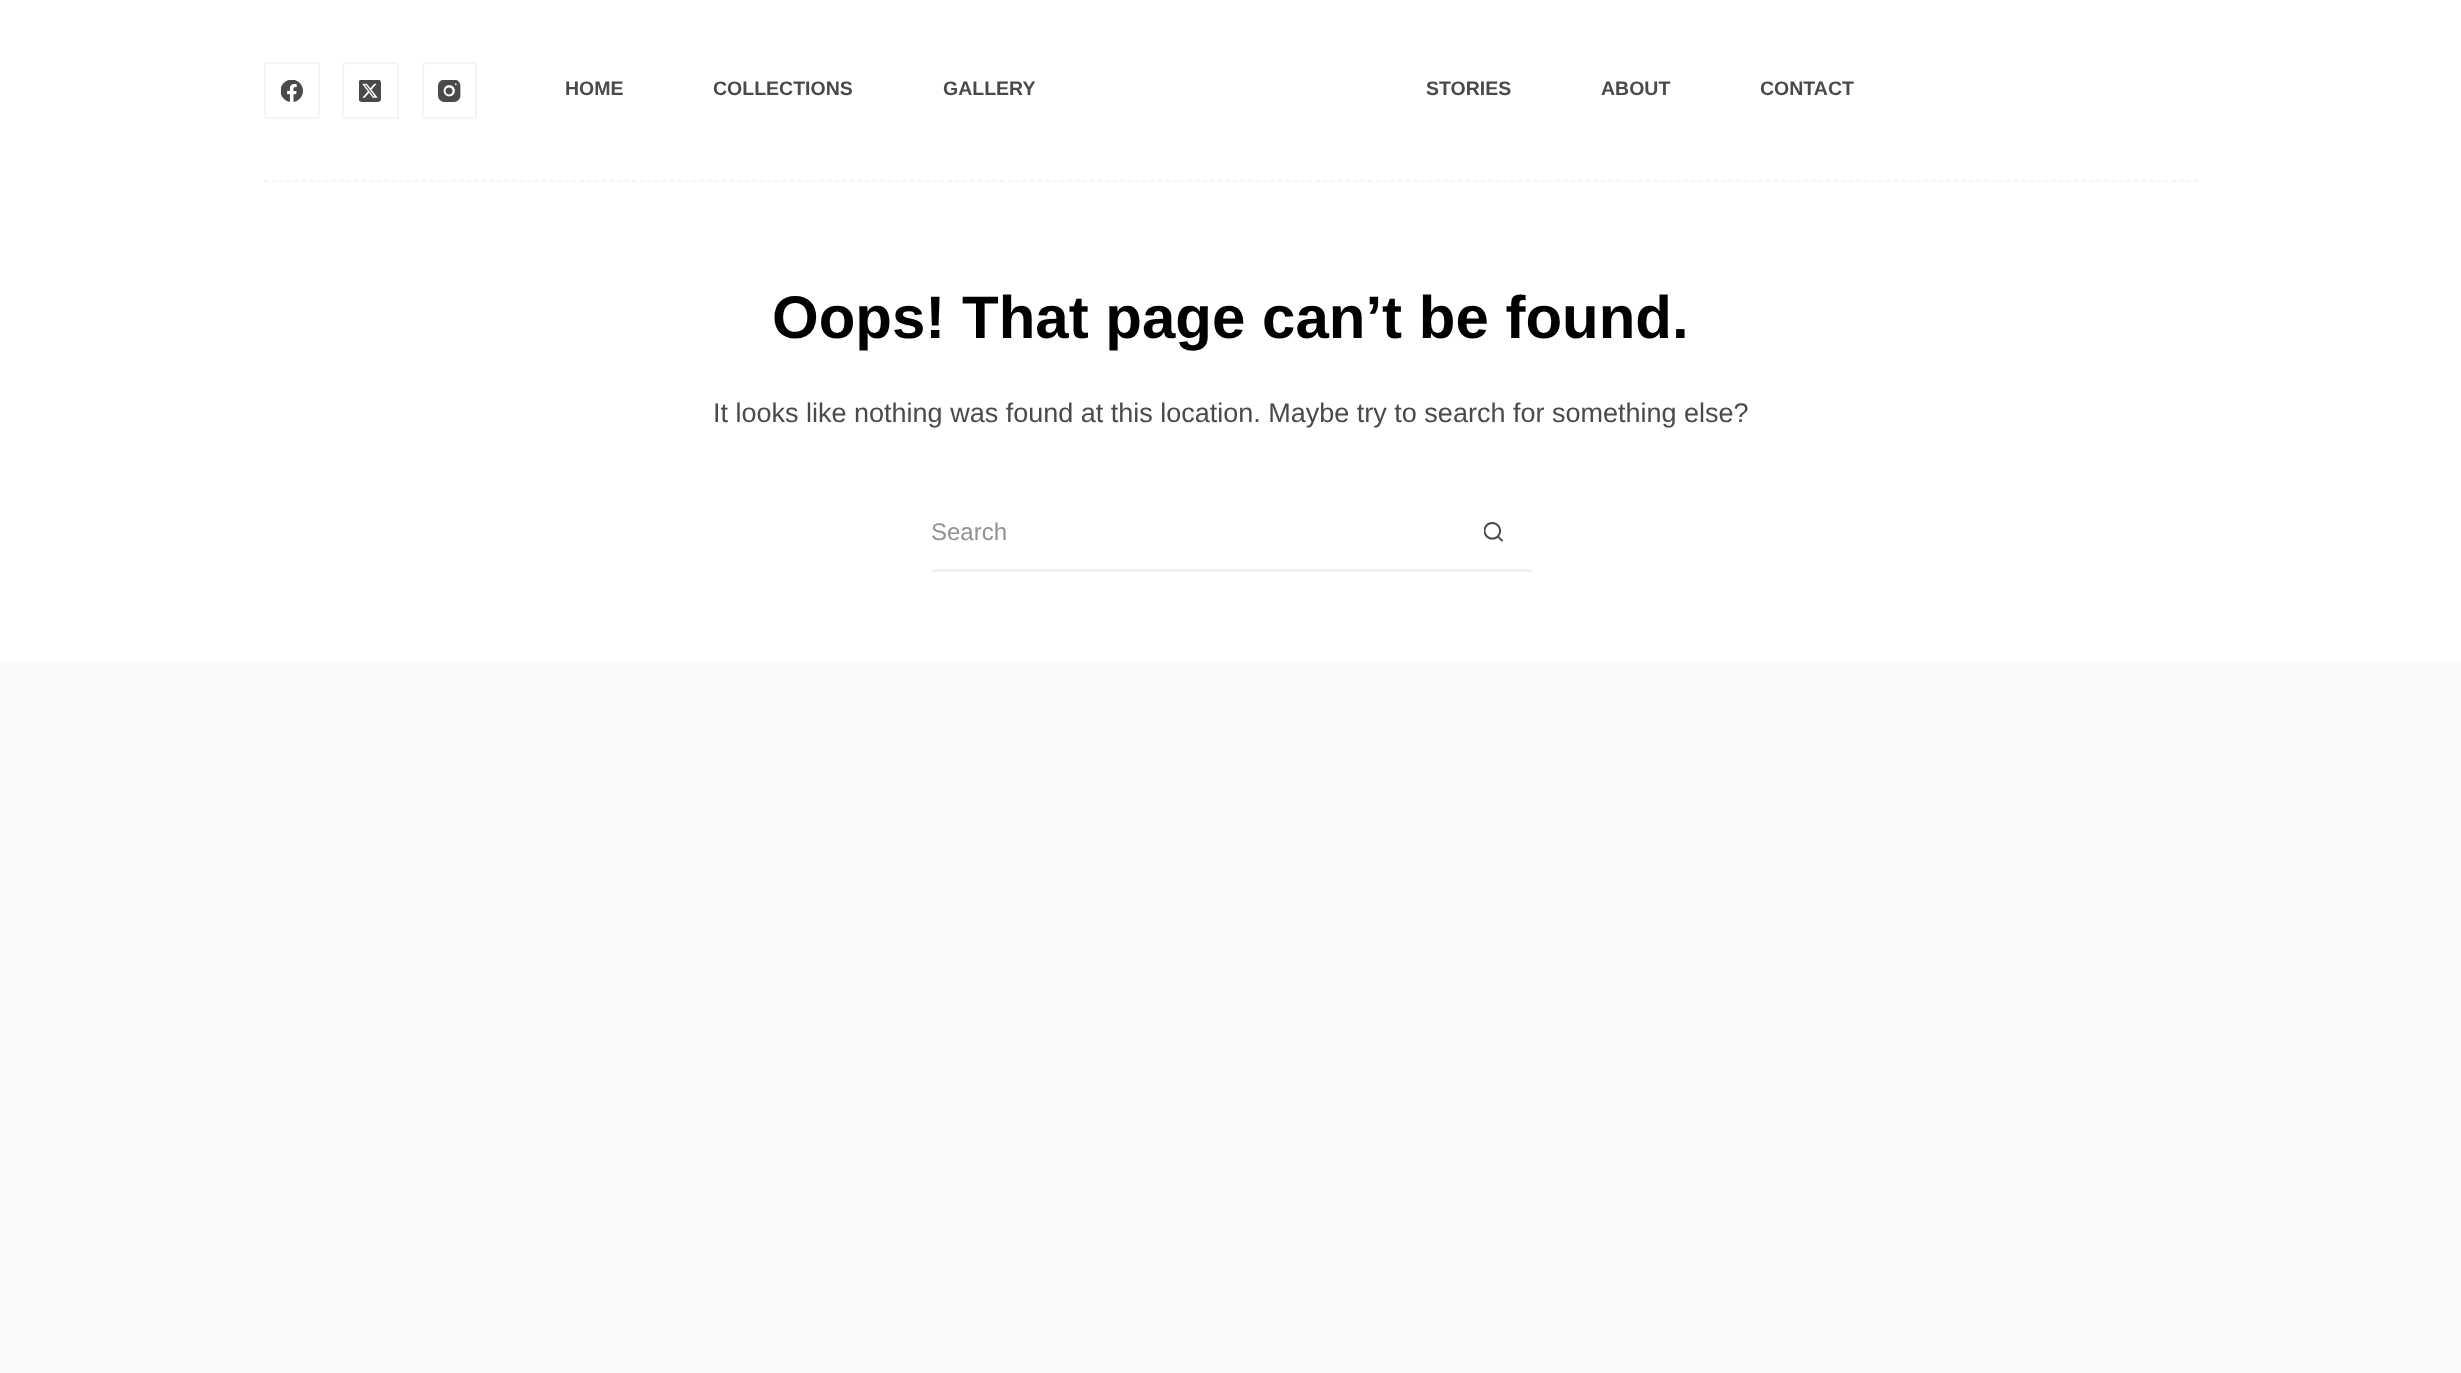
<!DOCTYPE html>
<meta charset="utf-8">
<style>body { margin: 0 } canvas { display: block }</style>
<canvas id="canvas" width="2461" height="1373"></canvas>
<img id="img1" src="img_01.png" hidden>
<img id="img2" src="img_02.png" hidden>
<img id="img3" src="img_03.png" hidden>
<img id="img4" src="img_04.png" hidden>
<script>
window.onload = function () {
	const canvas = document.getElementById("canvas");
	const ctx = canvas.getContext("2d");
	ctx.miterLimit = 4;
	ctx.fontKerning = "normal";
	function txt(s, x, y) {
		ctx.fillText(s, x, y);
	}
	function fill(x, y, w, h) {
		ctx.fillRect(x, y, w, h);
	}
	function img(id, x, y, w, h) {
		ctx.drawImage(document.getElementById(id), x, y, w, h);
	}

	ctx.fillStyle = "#FFFFFF";
	fill(0, 0, 2461, 1373);
	ctx.beginPath();
	ctx.moveTo(264, 181);
	ctx.lineTo(2199, 181);
	ctx.strokeStyle = "#F0F1F3";
	ctx.lineWidth = 1.5;
	ctx.setLineDash([4.5, 3.01]);
	ctx.stroke();
	ctx.beginPath();
	ctx.roundRect(265, 63, 54, 55, 2);
	ctx.strokeStyle = "#F4F5F7";
	ctx.lineWidth = 2;
	ctx.setLineDash([]);
	ctx.stroke();
	img("img1", 281, 80, 22, 22);
	ctx.beginPath();
	ctx.roundRect(343, 63, 55, 55, 2);
	ctx.stroke();
	img("img2", 359, 80, 22, 22);
	ctx.beginPath();
	ctx.roundRect(423, 63, 53, 55, 2);
	ctx.stroke();
	img("img3", 438, 80, 23, 22);
	ctx.fillStyle = "#EDEFF2";
	fill(932, 569, 600, 3);
	img("img4", 1484, 522, 19, 20);
	ctx.beginPath();
	ctx.moveTo(1498, 543);
	ctx.bezierCurveTo(1492, 545, 1485.5, 542, 1483.5, 536.5);
	ctx.strokeStyle = "#FFFFFF";
	ctx.lineWidth = 2.2;
	ctx.lineCap = "round";
	ctx.stroke();
	ctx.fillStyle = "#F9FAFB";
	fill(0, 662, 2461, 711);
	ctx.font = "bold 19.5px Liberation Sans";
	ctx.fillStyle = "#4A4A4A";
	txt("HOME", 565, 95);
	txt("COLLECTIONS", 713, 95);
	txt("GALLERY", 943, 95);
	txt("STORIES", 1426, 95);
	txt("ABOUT", 1601, 95);
	txt("CONTACT", 1760, 95);
	ctx.font = "bold 60px Liberation Sans";
	ctx.fillStyle = "#000000";
	txt("Oops! That page can’t be found.", 772, 338);
	ctx.font = "27px Liberation Sans";
	ctx.fillStyle = "#4A4A4A";
	txt("It looks like nothing was found at this location. Maybe try to search for something else?", 713, 422);
	ctx.font = "24px Liberation Sans";
	ctx.fillStyle = "#929292";
	txt("Search", 931, 540);
};
</script>
